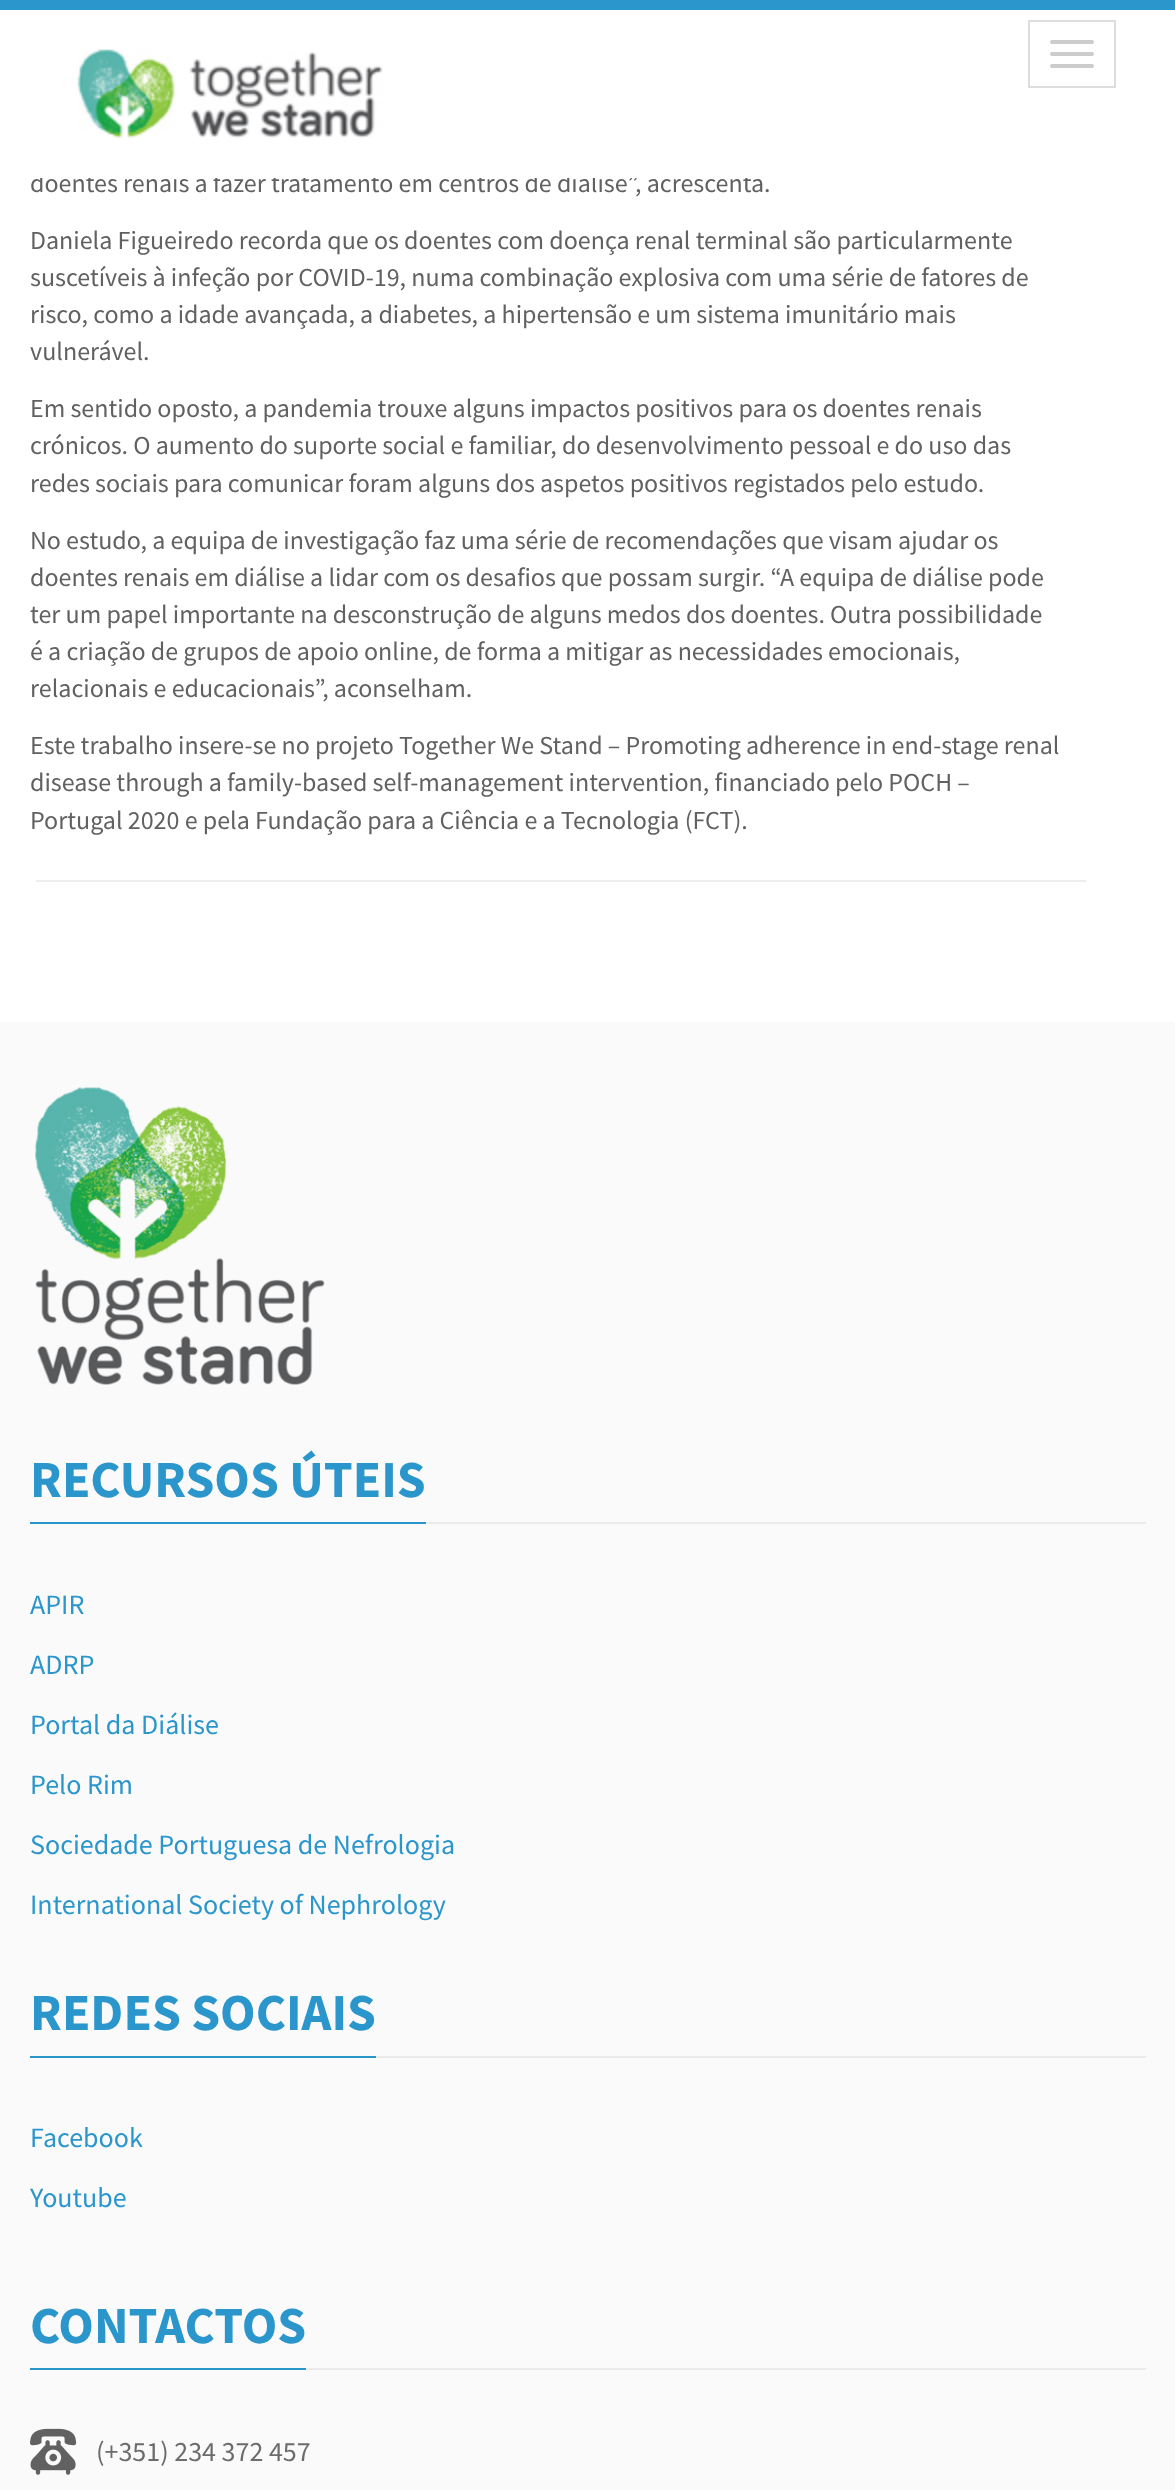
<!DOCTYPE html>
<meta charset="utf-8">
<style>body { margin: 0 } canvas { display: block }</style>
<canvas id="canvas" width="1175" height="2490"></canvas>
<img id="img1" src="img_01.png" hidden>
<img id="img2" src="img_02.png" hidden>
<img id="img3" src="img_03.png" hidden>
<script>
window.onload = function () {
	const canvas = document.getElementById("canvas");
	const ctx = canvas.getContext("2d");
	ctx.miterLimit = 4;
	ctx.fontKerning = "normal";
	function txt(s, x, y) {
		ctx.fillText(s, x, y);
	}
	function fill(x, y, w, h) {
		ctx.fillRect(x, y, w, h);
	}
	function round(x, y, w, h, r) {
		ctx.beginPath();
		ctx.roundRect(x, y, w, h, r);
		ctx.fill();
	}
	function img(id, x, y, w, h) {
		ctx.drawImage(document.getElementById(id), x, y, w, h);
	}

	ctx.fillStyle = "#FFFFFF";
	fill(0, 0, 1175, 2490);
	ctx.fillStyle = "#2B96CC";
	fill(0, 0, 1175, 10);
	img("img1", 77, 49, 306, 90);
	ctx.strokeStyle = "#DDDDDD";
	ctx.lineWidth = 2;
	ctx.strokeRect(1029, 21, 86, 66);
	ctx.fillStyle = "#CCCCCC";
	round(1050, 40, 44, 4, 2);
	round(1050, 52, 44, 4, 2);
	round(1050, 64, 44, 4, 2);
	ctx.fillStyle = "#EEEEEE";
	fill(36, 880, 1050, 2);
	ctx.fillStyle = "#FAFAFA";
	fill(0, 1022, 1175, 1468);
	img("img2", 35, 1087, 290, 298);
	ctx.fillStyle = "#EBEBEB";
	fill(426, 1522, 720, 2);
	ctx.fillStyle = "#2B96CC";
	fill(30, 1522, 396, 2);
	ctx.fillStyle = "#EBEBEB";
	fill(376, 2056, 770, 2);
	ctx.fillStyle = "#2B96CC";
	fill(30, 2056, 346, 2);
	ctx.fillStyle = "#EBEBEB";
	fill(306, 2368, 840, 2);
	ctx.fillStyle = "#2B96CC";
	fill(30, 2368, 276, 2);
	img("img3", 30, 2428, 47, 47);
	ctx.font = "26px Source Sans Pro";
	ctx.fillStyle = "#616161";
	txt("doentes renais a fazer tratamento em centros de diálise”, acrescenta.", 30, 192);
	ctx.fillStyle = "#FFFFFF";
	fill(40, 171, 708, 7);
	ctx.fillStyle = "#616161";
	txt("Daniela Figueiredo recorda que os doentes com doença renal terminal são particularmente", 30, 249);
	txt("suscetíveis à infeção por COVID-19, numa combinação explosiva com uma série de fatores de", 30, 286);
	txt("risco, como a idade avançada, a diabetes, a hipertensão e um sistema imunitário mais", 30, 323);
	txt("vulnerável.", 30, 360);
	txt("Em sentido oposto, a pandemia trouxe alguns impactos positivos para os doentes renais", 30, 417);
	txt("crónicos. O aumento do suporte social e familiar, do desenvolvimento pessoal e do uso das", 30, 454);
	txt("redes sociais para comunicar foram alguns dos aspetos positivos registados pelo estudo.", 30, 492);
	txt("No estudo, a equipa de investigação faz uma série de recomendações que visam ajudar os", 30, 549);
	txt("doentes renais em diálise a lidar com os desafios que possam surgir. “A equipa de diálise pode", 30, 586);
	txt("ter um papel importante na desconstrução de alguns medos dos doentes. Outra possibilidade", 30, 623);
	txt("é a criação de grupos de apoio online, de forma a mitigar as necessidades emocionais,", 30, 660);
	txt("relacionais e educacionais”, aconselham.", 30, 697);
	txt("Este trabalho insere-se no projeto Together We Stand – Promoting adherence in end-stage renal", 30, 754);
	txt("disease through a family-based self-management intervention, financiado pelo POCH –", 30, 791);
	txt("Portugal 2020 e pela Fundação para a Ciência e a Tecnologia (FCT).", 30, 829);
	ctx.font = "bold 52px Source Sans Pro";
	ctx.fillStyle = "#2B96CC";
	txt("RECURSOS ÚTEIS", 30, 1497);
	ctx.font = "28px Source Sans Pro";
	txt("APIR", 30, 1614);
	txt("ADRP", 30, 1674);
	txt("Portal da Diálise", 30, 1734);
	txt("Pelo Rim", 30, 1794);
	txt("Sociedade Portuguesa de Nefrologia", 30, 1854);
	txt("International Society of Nephrology", 30, 1914);
	ctx.font = "bold 52px Source Sans Pro";
	txt("REDES SOCIAIS", 30, 2030);
	ctx.font = "28px Source Sans Pro";
	txt("Facebook", 30, 2147);
	txt("Youtube", 30, 2207);
	ctx.font = "bold 52px Source Sans Pro";
	txt("CONTACTOS", 30, 2343);
	ctx.font = "28px Source Sans Pro";
	ctx.fillStyle = "#6C6C6C";
	txt("(+351) 234 372 457", 96, 2461);
};
</script>
